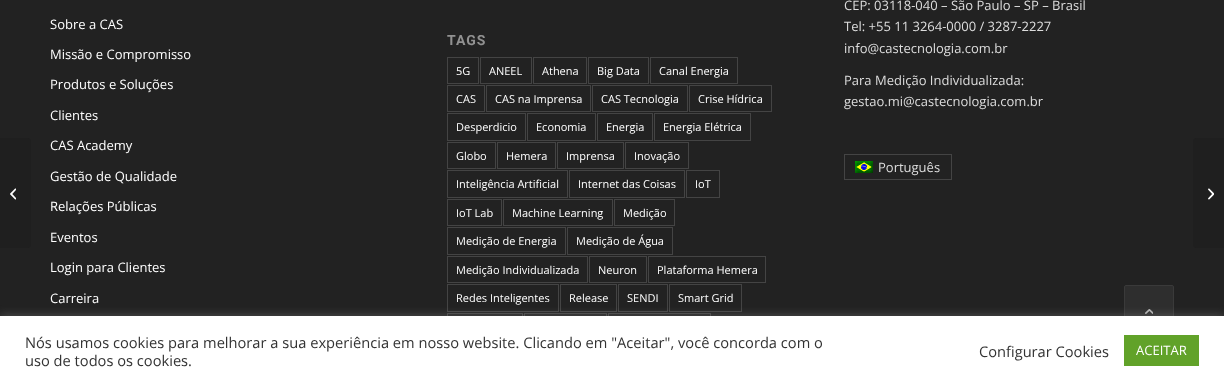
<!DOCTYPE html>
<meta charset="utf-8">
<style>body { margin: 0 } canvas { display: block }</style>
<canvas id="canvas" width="1224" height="385"></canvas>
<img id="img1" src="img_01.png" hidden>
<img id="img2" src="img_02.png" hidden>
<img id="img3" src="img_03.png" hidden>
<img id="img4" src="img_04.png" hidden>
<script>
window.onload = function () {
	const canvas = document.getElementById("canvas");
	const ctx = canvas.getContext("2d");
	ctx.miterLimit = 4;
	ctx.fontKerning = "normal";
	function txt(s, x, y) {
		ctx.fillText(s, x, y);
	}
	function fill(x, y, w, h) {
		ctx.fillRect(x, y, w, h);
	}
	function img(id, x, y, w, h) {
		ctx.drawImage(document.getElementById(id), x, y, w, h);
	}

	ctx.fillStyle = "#222222";
	fill(0, 0, 1224, 385);
	ctx.fillStyle = "#1F1F1F";
	ctx.beginPath();
	ctx.roundRect(0, 138, 31, 110, [0, 4, 4, 0]);
	ctx.fill();
	img("img1", 10, 188, 6, 12);
	ctx.strokeStyle = "#444444";
	ctx.strokeRect(447.5, 57.5, 31, 26);
	ctx.strokeRect(480.5, 57.5, 51, 26);
	ctx.strokeRect(533.5, 57.5, 53, 26);
	ctx.strokeRect(588.5, 57.5, 60, 26);
	ctx.strokeRect(650.5, 57.5, 87, 26);
	ctx.strokeRect(447.5, 85.5, 37, 26);
	ctx.strokeRect(486.5, 85.5, 104, 26);
	ctx.strokeRect(592.5, 85.5, 95, 26);
	ctx.strokeRect(689.5, 85.5, 82, 26);
	ctx.strokeRect(447.5, 113.5, 78, 27);
	ctx.strokeRect(527.5, 113.5, 68, 27);
	ctx.strokeRect(597.5, 113.5, 55, 27);
	ctx.strokeRect(654.5, 113.5, 96, 27);
	ctx.strokeRect(447.5, 142.5, 48, 26);
	ctx.strokeRect(497.5, 142.5, 58, 26);
	ctx.strokeRect(557.5, 142.5, 66, 26);
	ctx.strokeRect(625.5, 142.5, 63, 26);
	ctx.strokeRect(447.5, 170.5, 120, 27);
	ctx.strokeRect(569.5, 170.5, 115, 27);
	ctx.strokeRect(686.5, 170.5, 33, 27);
	ctx.strokeRect(447.5, 199.5, 54, 26);
	ctx.strokeRect(503.5, 199.5, 109, 26);
	ctx.strokeRect(614.5, 199.5, 60, 26);
	ctx.strokeRect(447.5, 227.5, 118, 27);
	ctx.strokeRect(567.5, 227.5, 105, 27);
	ctx.strokeRect(447.5, 256.5, 140, 26);
	ctx.strokeRect(589.5, 256.5, 57, 26);
	ctx.strokeRect(648.5, 256.5, 117, 26);
	ctx.strokeRect(447.5, 284.5, 111, 27);
	ctx.strokeRect(560.5, 284.5, 56, 27);
	ctx.strokeRect(618.5, 284.5, 49, 27);
	ctx.strokeRect(669.5, 284.5, 72, 27);
	ctx.strokeRect(447.5, 313.5, 75, 26);
	ctx.strokeRect(524.5, 313.5, 82, 26);
	ctx.strokeRect(608.5, 313.5, 102, 26);
	ctx.fillStyle = "#444444";
	fill(844, 154, 108, 1);
	fill(951, 154, 1, 26);
	fill(844, 154, 1, 26);
	fill(845, 179, 106, 1);
	img("img2", 855, 161, 18, 12);
	ctx.fillStyle = "#1F1F1F";
	ctx.beginPath();
	ctx.roundRect(1193, 138, 31, 110, [4, 0, 0, 4]);
	ctx.fill();
	img("img3", 1208, 188, 6, 12);
	ctx.fillStyle = "#2E2E2E";
	ctx.beginPath();
	ctx.roundRect(1124.5, 285.5, 49, 49, 1.5);
	ctx.fill();
	ctx.strokeStyle = "#3A3A3A";
	ctx.stroke();
	img("img4", 1145, 309, 8, 5);
	ctx.fillStyle = "rgba(172, 171, 171, 0.3)";
	ctx.filter = "blur(5px)";
	ctx.beginPath();
	ctx.rect(0, 315, 1224, 69);
	ctx.fill();
	ctx.filter = "none";
	ctx.fillStyle = "#FFFFFF";
	fill(0, 316, 1224, 69);
	ctx.fillStyle = "#61A229";
	fill(1124, 335, 75, 31);
	ctx.font = "13px Open Sans";
	ctx.fillStyle = "#FFFFFF";
	txt("Sobre a CAS", 50, 29);
	txt("Missão e Compromisso", 50, 59);
	txt("Produtos e Soluções", 50, 89);
	txt("Clientes", 50, 120);
	txt("CAS Academy", 50, 150);
	txt("Gestão de Qualidade", 50, 181);
	txt("Relações Públicas", 50, 211);
	txt("Eventos", 50, 242);
	txt("Login para Clientes", 50, 272);
	txt("Carreira", 50, 303);
	ctx.letterSpacing = "1px";
	ctx.font = "bold 14px Roboto";
	ctx.fillStyle = "#919191";
	txt("TAGS", 447, 45);
	ctx.letterSpacing = "0px";
	ctx.font = "11px Open Sans";
	ctx.fillStyle = "#FFFFFF";
	txt("5G", 456, 75);
	txt("ANEEL", 489, 75);
	txt("Athena", 542, 75);
	txt("Big Data", 597, 75);
	txt("Canal Energia", 659, 75);
	txt("CAS", 456, 103);
	txt("CAS na Imprensa", 495, 103);
	txt("CAS Tecnologia", 601, 103);
	txt("Crise Hídrica", 698, 103);
	txt("Desperdicio", 456, 131);
	txt("Economia", 536, 131);
	txt("Energia", 606, 131);
	txt("Energia Elétrica", 663, 131);
	txt("Globo", 456, 160);
	txt("Hemera", 506, 160);
	txt("Imprensa", 566, 160);
	txt("Inovação", 634, 160);
	txt("Inteligência Artificial", 456, 188);
	txt("Internet das Coisas", 578, 188);
	txt("IoT", 695, 188);
	txt("IoT Lab", 456, 217);
	txt("Machine Learning", 512, 217);
	txt("Medição", 623, 217);
	txt("Medição de Energia", 456, 245);
	txt("Medição de Água", 576, 245);
	txt("Medição Individualizada", 456, 274);
	txt("Neuron", 598, 274);
	txt("Plataforma Hemera", 657, 274);
	txt("Redes Inteligentes", 456, 302);
	txt("Release", 569, 302);
	txt("SENDI", 627, 302);
	txt("Smart Grid", 678, 302);
	ctx.font = "13px Open Sans";
	ctx.fillStyle = "#DDDDDD";
	txt("CEP: 03118-040 – São Paulo – SP – Brasil", 844, 10);
	txt("Tel: +55 11 3264-0000 / 3287-2227", 844, 31);
	txt("info@castecnologia.com.br", 844, 53);
	txt("Para Medição Individualizada:", 844, 85);
	txt("gestao.mi@castecnologia.com.br", 844, 106);
	txt("Português", 878, 172);
	ctx.font = "14.67px Open Sans";
	ctx.fillStyle = "#333333";
	txt("Nós usamos cookies para melhorar a sua experiência em nosso website. Clicando em \"Aceitar\", você concorda com o", 25, 348);
	txt("uso de todos os cookies.", 25, 366);
	txt("Configurar Cookies", 979, 357);
	ctx.font = "13px Open Sans";
	ctx.fillStyle = "#FFFFFF";
	txt("ACEITAR", 1136, 355);
};
</script>
